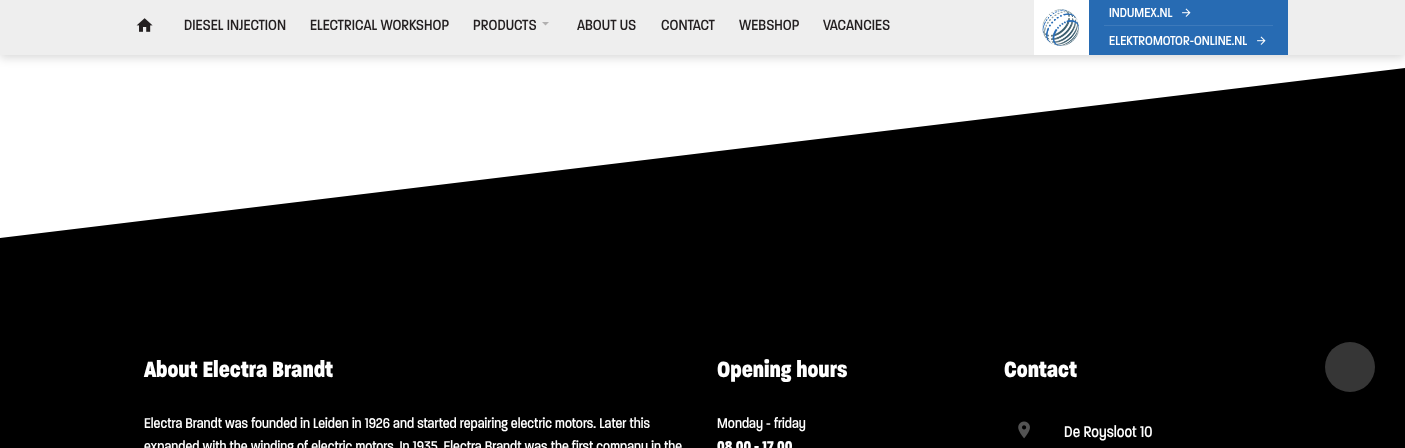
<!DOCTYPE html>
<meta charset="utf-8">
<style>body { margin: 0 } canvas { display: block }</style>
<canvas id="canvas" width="1405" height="448"></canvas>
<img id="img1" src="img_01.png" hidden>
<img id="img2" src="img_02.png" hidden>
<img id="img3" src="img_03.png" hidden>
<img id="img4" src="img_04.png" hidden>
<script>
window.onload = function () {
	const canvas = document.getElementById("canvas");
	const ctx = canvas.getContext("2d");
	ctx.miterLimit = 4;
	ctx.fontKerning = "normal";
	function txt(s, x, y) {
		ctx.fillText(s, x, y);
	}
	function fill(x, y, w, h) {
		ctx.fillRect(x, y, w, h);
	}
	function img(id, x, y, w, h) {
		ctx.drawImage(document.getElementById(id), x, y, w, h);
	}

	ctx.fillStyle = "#FFFFFF";
	fill(0, 0, 1405, 448);
	ctx.fillStyle = "#000000";
	ctx.beginPath();
	ctx.moveTo(1405, 68);
	ctx.lineTo(1405, 238);
	ctx.lineTo(0, 238);
	ctx.closePath();
	ctx.fill();
	ctx.fillStyle = "rgba(0, 0, 0, 0.15)";
	ctx.filter = "blur(5px)";
	ctx.beginPath();
	ctx.rect(0, 3, 1405, 55);
	ctx.fill();
	ctx.filter = "none";
	ctx.fillStyle = "#EEEEEE";
	fill(0, 0, 1405, 55);
	img("img1", 136, 18, 17, 14);
	ctx.fillStyle = "#B1B0B0";
	ctx.beginPath();
	ctx.moveTo(542, 22);
	ctx.lineTo(549, 22);
	ctx.lineTo(545.5, 25.5);
	ctx.closePath();
	ctx.fill();
	ctx.fillStyle = "#FFFFFF";
	fill(1034, 0, 55, 55);
	img("img2", 1042, 9, 37, 37);
	ctx.fillStyle = "#276BB3";
	fill(1089, 0, 199, 55);
	ctx.fillStyle = "#3D7ABB";
	fill(1104, 25, 169, 1);
	img("img3", 1182, 8, 9, 9);
	img("img3", 1257, 36, 9, 9);
	ctx.fillStyle = "#000000";
	fill(0, 238, 1405, 210);
	img("img4", 1018, 421, 12, 18);
	ctx.fillStyle = "#363636";
	ctx.beginPath();
	ctx.arc(1350, 367, 25, 0, Math.PI * 2);
	ctx.fill();
	ctx.font = "500 16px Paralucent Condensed";
	ctx.fillStyle = "#231F20";
	txt("DIESEL INJECTION", 184, 30);
	txt("ELECTRICAL WORKSHOP", 310, 30);
	txt("PRODUCTS", 473, 30);
	txt("ABOUT US", 577, 30);
	txt("CONTACT", 661, 30);
	txt("WEBSHOP", 739, 30);
	txt("VACANCIES", 823, 30);
	ctx.font = "500 14px Paralucent Condensed";
	ctx.fillStyle = "#FFFFFF";
	txt("INDUMEX.NL", 1109, 17);
	txt("ELEKTROMOTOR-ONLINE.NL", 1109, 45);
	ctx.font = "900 24px Paralucent Condensed";
	txt("About Electra Brandt", 144, 377);
	ctx.font = "500 15.4px Paralucent Condensed";
	txt("Electra Brandt was founded in Leiden in 1926 and started repairing electric motors. Later this", 144, 428);
	txt("expanded with the winding of electric motors. In 1935, Electra Brandt was the first company in the", 144, 451);
	ctx.font = "900 24px Paralucent Condensed";
	txt("Opening hours", 717, 377);
	ctx.font = "500 15.4px Paralucent Condensed";
	txt("Monday - friday", 717, 428);
	ctx.font = "900 15.4px Paralucent Condensed";
	txt("08.00 - 17.00", 717, 451);
	ctx.font = "900 24px Paralucent Condensed";
	txt("Contact", 1004, 377);
	ctx.font = "500 16.75px Paralucent Condensed";
	txt("De Roysloot 10", 1064, 437);
};
</script>
